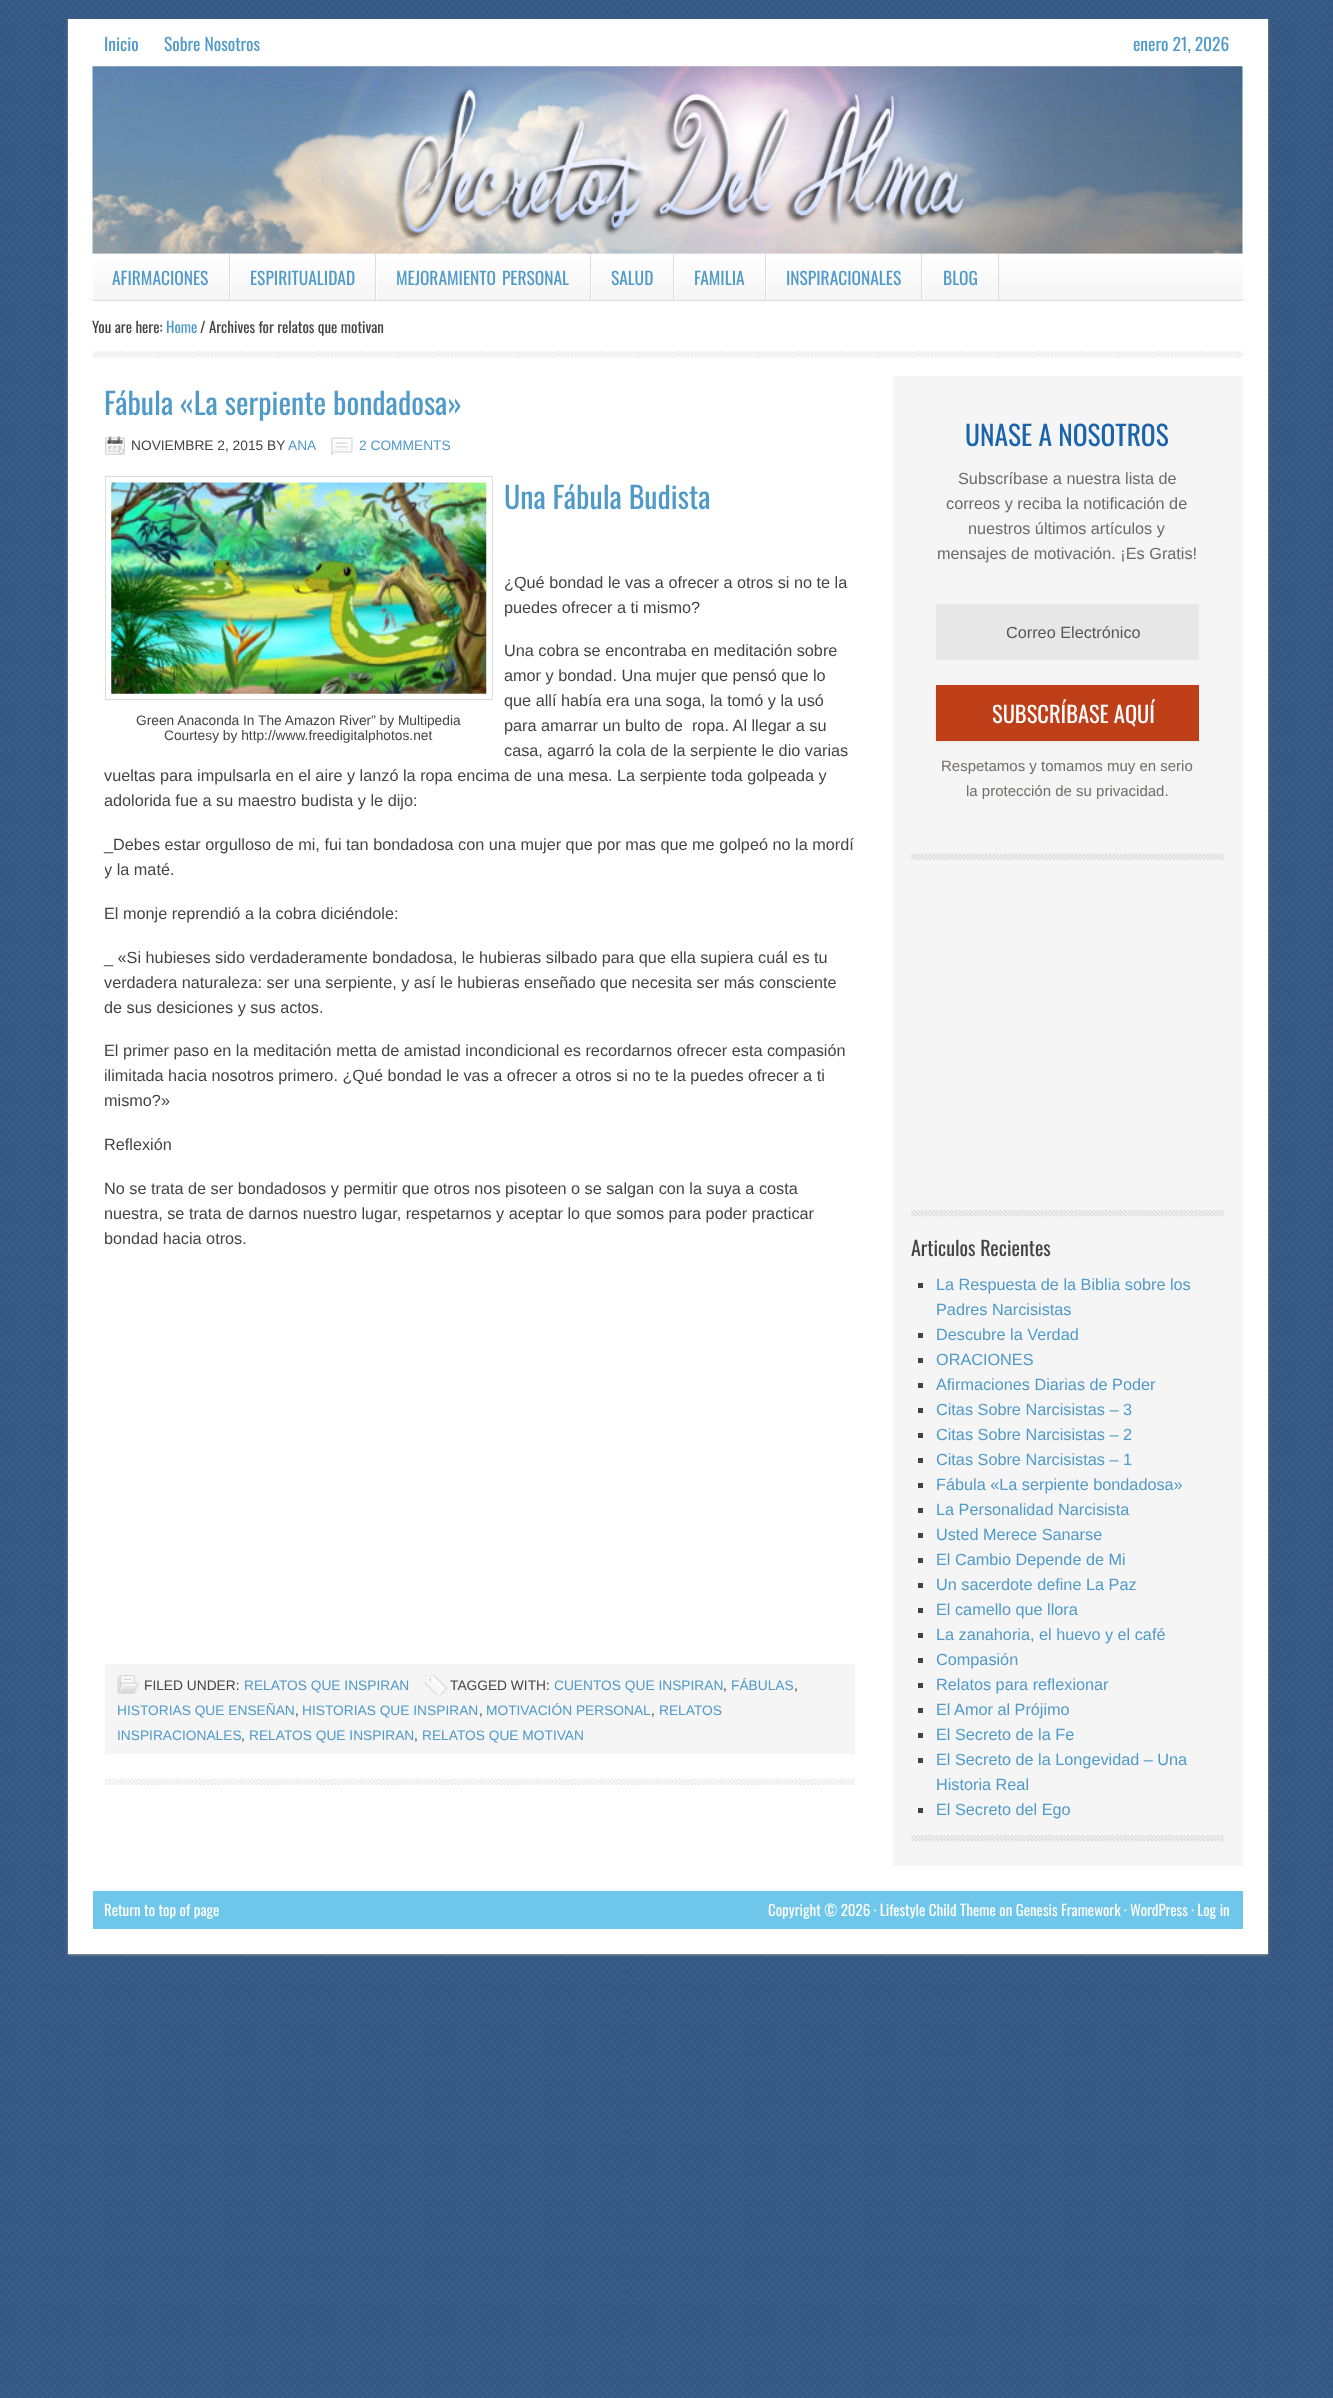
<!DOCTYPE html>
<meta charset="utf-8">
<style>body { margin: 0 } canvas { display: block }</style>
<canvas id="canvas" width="1333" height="2398"></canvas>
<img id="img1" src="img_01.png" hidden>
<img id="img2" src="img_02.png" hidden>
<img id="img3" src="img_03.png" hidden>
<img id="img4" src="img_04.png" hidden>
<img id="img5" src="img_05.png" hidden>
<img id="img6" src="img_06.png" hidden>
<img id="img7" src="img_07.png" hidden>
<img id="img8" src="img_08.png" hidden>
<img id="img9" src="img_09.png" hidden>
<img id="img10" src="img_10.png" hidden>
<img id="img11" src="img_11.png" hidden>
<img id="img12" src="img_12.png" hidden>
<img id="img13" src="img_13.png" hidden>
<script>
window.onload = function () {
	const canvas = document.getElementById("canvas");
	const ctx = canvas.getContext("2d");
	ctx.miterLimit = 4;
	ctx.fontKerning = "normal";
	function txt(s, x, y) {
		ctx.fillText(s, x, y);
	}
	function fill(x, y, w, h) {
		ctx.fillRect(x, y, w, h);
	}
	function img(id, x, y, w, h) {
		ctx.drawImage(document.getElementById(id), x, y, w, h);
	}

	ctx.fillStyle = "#FFFFFF";
	fill(0, 0, 1333, 2398);
	img("img1", 0, 0, 1333, 2398);
	ctx.fillStyle = "#999999";
	ctx.filter = "blur(1px)";
	ctx.beginPath();
	ctx.rect(68, 20, 1200, 1935);
	ctx.fill();
	ctx.filter = "none";
	ctx.fillStyle = "#FFFFFF";
	fill(68, 19, 1200, 1935);
	img("img2", 92, 66, 1151, 188);
	img("img3", 92, 253, 1151, 47);
	ctx.fillStyle = "#DDDDDD";
	fill(93, 300, 1150, 1);
	fill(229, 254, 1, 46);
	ctx.fillStyle = "#FFFFFF";
	fill(93, 268, 1, 32);
	ctx.fillStyle = "#DDDDDD";
	fill(375, 254, 1, 46);
	ctx.fillStyle = "#FFFFFF";
	fill(230, 268, 1, 32);
	ctx.fillStyle = "#DDDDDD";
	fill(590, 254, 1, 46);
	ctx.fillStyle = "#FFFFFF";
	fill(376, 268, 1, 32);
	ctx.fillStyle = "#DDDDDD";
	fill(673, 254, 1, 46);
	ctx.fillStyle = "#FFFFFF";
	fill(591, 268, 1, 32);
	ctx.fillStyle = "#DDDDDD";
	fill(765, 254, 1, 46);
	ctx.fillStyle = "#FFFFFF";
	fill(674, 268, 1, 32);
	ctx.fillStyle = "#DDDDDD";
	fill(921, 254, 1, 46);
	ctx.fillStyle = "#FFFFFF";
	fill(766, 268, 1, 32);
	ctx.fillStyle = "#DDDDDD";
	fill(998, 254, 1, 46);
	ctx.fillStyle = "#FFFFFF";
	fill(923, 268, 1, 32);
	img("img4", 92, 351, 1151, 7);
	img("img5", 105, 1778, 750, 7);
	img("img6", 105, 436, 20, 19);
	img("img7", 331, 437, 22, 18);
	ctx.strokeStyle = "#DDDDDD";
	ctx.strokeRect(105.5, 476.5, 387, 223);
	img("img8", 111, 482, 376, 212);
	ctx.fillStyle = "#F5F5F5";
	fill(105, 1664, 750, 90);
	img("img9", 117, 1675, 22, 19);
	img("img10", 425, 1675, 23, 20);
	fill(893, 376, 350, 1490);
	img("img11", 911, 853, 313, 7);
	ctx.fillStyle = "#E7E7E7";
	fill(936, 604, 263, 56);
	ctx.fillStyle = "rgba(0, 0, 0, 0.05)";
	ctx.filter = "blur(1px)";
	ctx.beginPath();
	ctx.rect(936, 686, 263, 57);
	ctx.fill();
	ctx.filter = "none";
	ctx.fillStyle = "#BF3F18";
	fill(936, 685, 263, 56);
	img("img12", 911, 1210, 313, 7);
	img("img13", 911, 1835, 313, 7);
	ctx.fillStyle = "#444444";
	fill(918, 1283, 5, 5);
	fill(918, 1333, 5, 5);
	fill(918, 1358, 5, 5);
	fill(918, 1383, 5, 5);
	fill(918, 1408, 5, 5);
	fill(918, 1433, 5, 5);
	fill(918, 1458, 5, 5);
	fill(918, 1483, 5, 5);
	fill(918, 1508, 5, 5);
	fill(918, 1533, 5, 5);
	fill(918, 1558, 5, 5);
	fill(918, 1583, 5, 5);
	fill(918, 1608, 5, 5);
	fill(918, 1633, 5, 5);
	fill(918, 1658, 5, 5);
	fill(918, 1683, 5, 5);
	fill(918, 1708, 5, 5);
	fill(918, 1733, 5, 5);
	fill(918, 1758, 5, 5);
	fill(918, 1808, 5, 5);
	ctx.fillStyle = "#6EC6EA";
	fill(93, 1891, 1150, 38);
	ctx.font = "17.5px Oswald";
	ctx.fillStyle = "#509AC9";
	txt("Inicio", 104, 51);
	txt("Sobre Nosotros", 164, 51);
	txt("enero 21, 2026", 1133, 51);
	txt("AFIRMACIONES", 112, 285);
	txt("ESPIRITUALIDAD", 250, 285);
	ctx.wordSpacing = "2px";
	txt("MEJORAMIENTO PERSONAL", 396, 285);
	ctx.wordSpacing = "0px";
	txt("SALUD", 611, 285);
	txt("FAMILIA", 694, 285);
	txt("INSPIRACIONALES", 786, 285);
	txt("BLOG", 943, 285);
	ctx.font = "15px Oswald";
	ctx.fillStyle = "#444444";
	txt("You are here:", 92, 333);
	ctx.fillStyle = "#509AC9";
	txt("Home", 166, 333);
	ctx.fillStyle = "#444444";
	txt("/ Archives for relatos que motivan", 200, 333);
	ctx.font = "30px Oswald";
	ctx.fillStyle = "#509AC9";
	txt("Fábula «La serpiente bondadosa»", 104, 415);
	ctx.font = "13.75px Liberation Sans";
	ctx.fillStyle = "#444444";
	txt("NOVIEMBRE 2, 2015 BY", 131, 450);
	ctx.fillStyle = "#509AC9";
	txt("ANA", 288, 450);
	txt("2 COMMENTS", 359, 450);
	ctx.font = "30px Oswald";
	txt("Una Fábula Budista", 504, 509);
	ctx.font = "16.25px Liberation Sans";
	ctx.fillStyle = "#444444";
	txt("¿Qué bondad le vas a ofrecer a otros si no te la", 504, 588);
	txt("puedes ofrecer a ti mismo?", 504, 613);
	txt("Una cobra se encontraba en meditación sobre", 504, 656);
	txt("amor y bondad. Una mujer que pensó que lo", 504, 681);
	txt("que allí había era una soga, la tomó y la usó", 504, 706);
	txt("para amarrar un bulto de  ropa. Al llegar a su", 504, 731);
	txt("casa, agarró la cola de la serpiente le dio varias", 504, 756);
	txt("vueltas para impulsarla en el aire y lanzó la ropa encima de una mesa. La serpiente toda golpeada y", 104, 781);
	txt("adolorida fue a su maestro budista y le dijo:", 104, 806);
	ctx.font = "13.75px Liberation Sans";
	txt("Green Anaconda In The Amazon River” by Multipedia", 136, 725);
	txt("Courtesy by http://www.freedigitalphotos.net", 164, 740);
	ctx.font = "16.25px Liberation Sans";
	txt("_Debes estar orgulloso de mi, fui tan bondadosa con una mujer que por mas que me golpeó no la mordí", 104, 850);
	ctx.save();
	ctx.beginPath();
	ctx.rect(105, 383, 750, 1402);
	ctx.clip();
	txt("y la maté.", 104, 875);
	ctx.restore();
	txt("El monje reprendió a la cobra diciéndole:", 104, 919);
	txt("_ «Si hubieses sido verdaderamente bondadosa, le hubieras silbado para que ella supiera cuál es tu", 104, 963);
	txt("verdadera naturaleza: ser una serpiente, y así le hubieras enseñado que necesita ser más consciente", 104, 988);
	txt("de sus desiciones y sus actos.", 104, 1013);
	txt("El primer paso en la meditación metta de amistad incondicional es recordarnos ofrecer esta compasión", 104, 1056);
	txt("ilimitada hacia nosotros primero. ¿Qué bondad le vas a ofrecer a otros si no te la puedes ofrecer a ti", 104, 1081);
	txt("mismo?»", 104, 1106);
	txt("Reflexión", 104, 1150);
	txt("No se trata de ser bondadosos y permitir que otros nos pisoteen o se salgan con la suya a costa", 104, 1194);
	txt("nuestra, se trata de darnos nuestro lugar, respetarnos y aceptar lo que somos para poder practicar", 104, 1219);
	txt("bondad hacia otros.", 104, 1244);
	ctx.font = "13.75px Liberation Sans";
	txt("FILED UNDER:", 144, 1690);
	ctx.fillStyle = "#509AC9";
	txt("RELATOS QUE INSPIRAN", 244, 1690);
	ctx.fillStyle = "#444444";
	txt("TAGGED WITH:", 450, 1690);
	ctx.fillStyle = "#509AC9";
	txt("CUENTOS QUE INSPIRAN", 554, 1690);
	ctx.fillStyle = "#444444";
	txt(",", 723, 1690);
	ctx.fillStyle = "#509AC9";
	txt("FÁBULAS", 731, 1690);
	ctx.fillStyle = "#444444";
	txt(",", 794, 1690);
	ctx.fillStyle = "#509AC9";
	txt("HISTORIAS QUE ENSEÑAN", 117, 1715);
	ctx.fillStyle = "#444444";
	txt(",", 295, 1715);
	ctx.fillStyle = "#509AC9";
	txt("HISTORIAS QUE INSPIRAN", 302, 1715);
	ctx.fillStyle = "#444444";
	txt(",", 479, 1715);
	ctx.fillStyle = "#509AC9";
	txt("MOTIVACIÓN PERSONAL", 486, 1715);
	ctx.fillStyle = "#444444";
	txt(",", 651, 1715);
	ctx.fillStyle = "#509AC9";
	txt("RELATOS", 659, 1715);
	txt("INSPIRACIONALES", 117, 1740);
	ctx.fillStyle = "#444444";
	txt(",", 241, 1740);
	ctx.fillStyle = "#509AC9";
	txt("RELATOS QUE INSPIRAN", 249, 1740);
	ctx.fillStyle = "#444444";
	txt(",", 414, 1740);
	ctx.fillStyle = "#509AC9";
	txt("RELATOS QUE MOTIVAN", 422, 1740);
	ctx.font = "27.5px Oswald";
	ctx.fillStyle = "#1A63AD";
	txt("UNASE A NOSOTROS", 965, 446);
	ctx.font = "16.25px Liberation Sans";
	ctx.fillStyle = "#6A6A6A";
	txt("Subscríbase a nuestra lista de", 958, 484);
	txt("correos y reciba la notificación de", 946, 509);
	txt("nuestros últimos artículos y", 968, 534);
	txt("mensajes de motivación. ¡Es Gratis!", 937, 559);
	ctx.fillStyle = "#575757";
	txt("Correo Electrónico", 1006, 638);
	ctx.font = "22.5px Oswald";
	ctx.fillStyle = "#FFFFFF";
	txt("SUBSCRÍBASE AQUÍ", 992, 723);
	ctx.font = "15px Liberation Sans";
	ctx.fillStyle = "#706E6B";
	txt("Respetamos y tomamos muy en serio", 941, 771);
	txt("la protección de su privacidad.", 966, 796);
	ctx.font = "20px Oswald";
	ctx.fillStyle = "#444444";
	txt("Articulos Recientes", 911, 1256);
	ctx.font = "16.25px Liberation Sans";
	ctx.fillStyle = "#509AC9";
	txt("La Respuesta de la Biblia sobre los", 936, 1290);
	txt("Padres Narcisistas", 936, 1315);
	txt("Descubre la Verdad", 936, 1340);
	txt("ORACIONES", 936, 1365);
	txt("Afirmaciones Diarias de Poder", 936, 1390);
	txt("Citas Sobre Narcisistas – 3", 936, 1415);
	txt("Citas Sobre Narcisistas – 2", 936, 1440);
	txt("Citas Sobre Narcisistas – 1", 936, 1465);
	txt("Fábula «La serpiente bondadosa»", 936, 1490);
	txt("La Personalidad Narcisista", 936, 1515);
	txt("Usted Merece Sanarse", 936, 1540);
	txt("El Cambio Depende de Mi", 936, 1565);
	txt("Un sacerdote define La Paz", 936, 1590);
	txt("El camello que llora", 936, 1615);
	txt("La zanahoria, el huevo y el café", 936, 1640);
	txt("Compasión", 936, 1665);
	txt("Relatos para reflexionar", 936, 1690);
	txt("El Amor al Prójimo", 936, 1715);
	txt("El Secreto de la Fe", 936, 1740);
	txt("El Secreto de la Longevidad – Una", 936, 1765);
	txt("Historia Real", 936, 1790);
	txt("El Secreto del Ego", 936, 1815);
	ctx.font = "15px Oswald";
	ctx.fillStyle = "#FFFFFF";
	txt("Return to top of page", 104, 1916);
	txt("Copyright © 2026 · Lifestyle Child Theme on Genesis Framework · WordPress · Log in", 768, 1916);
};
</script>
